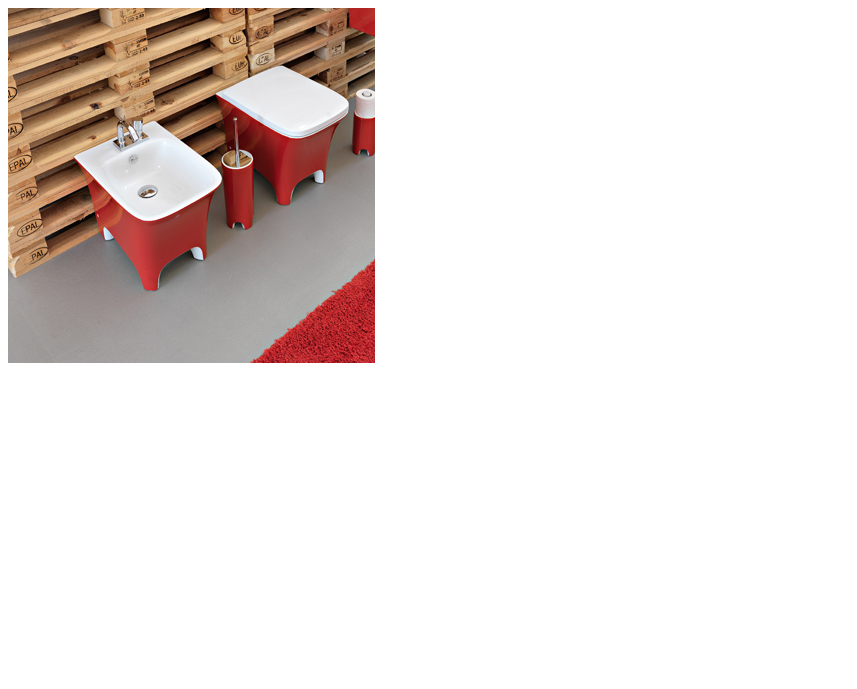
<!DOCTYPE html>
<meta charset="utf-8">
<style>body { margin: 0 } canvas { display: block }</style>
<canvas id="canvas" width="857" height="689"></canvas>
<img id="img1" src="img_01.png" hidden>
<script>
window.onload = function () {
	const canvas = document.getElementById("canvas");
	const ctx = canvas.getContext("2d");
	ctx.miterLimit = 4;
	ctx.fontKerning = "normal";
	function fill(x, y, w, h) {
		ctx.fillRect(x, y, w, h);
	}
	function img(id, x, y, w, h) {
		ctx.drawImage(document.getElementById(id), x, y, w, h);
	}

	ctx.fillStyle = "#FFFFFF";
	fill(0, 0, 857, 689);
	img("img1", 8, 8, 367, 355);
};
</script>
